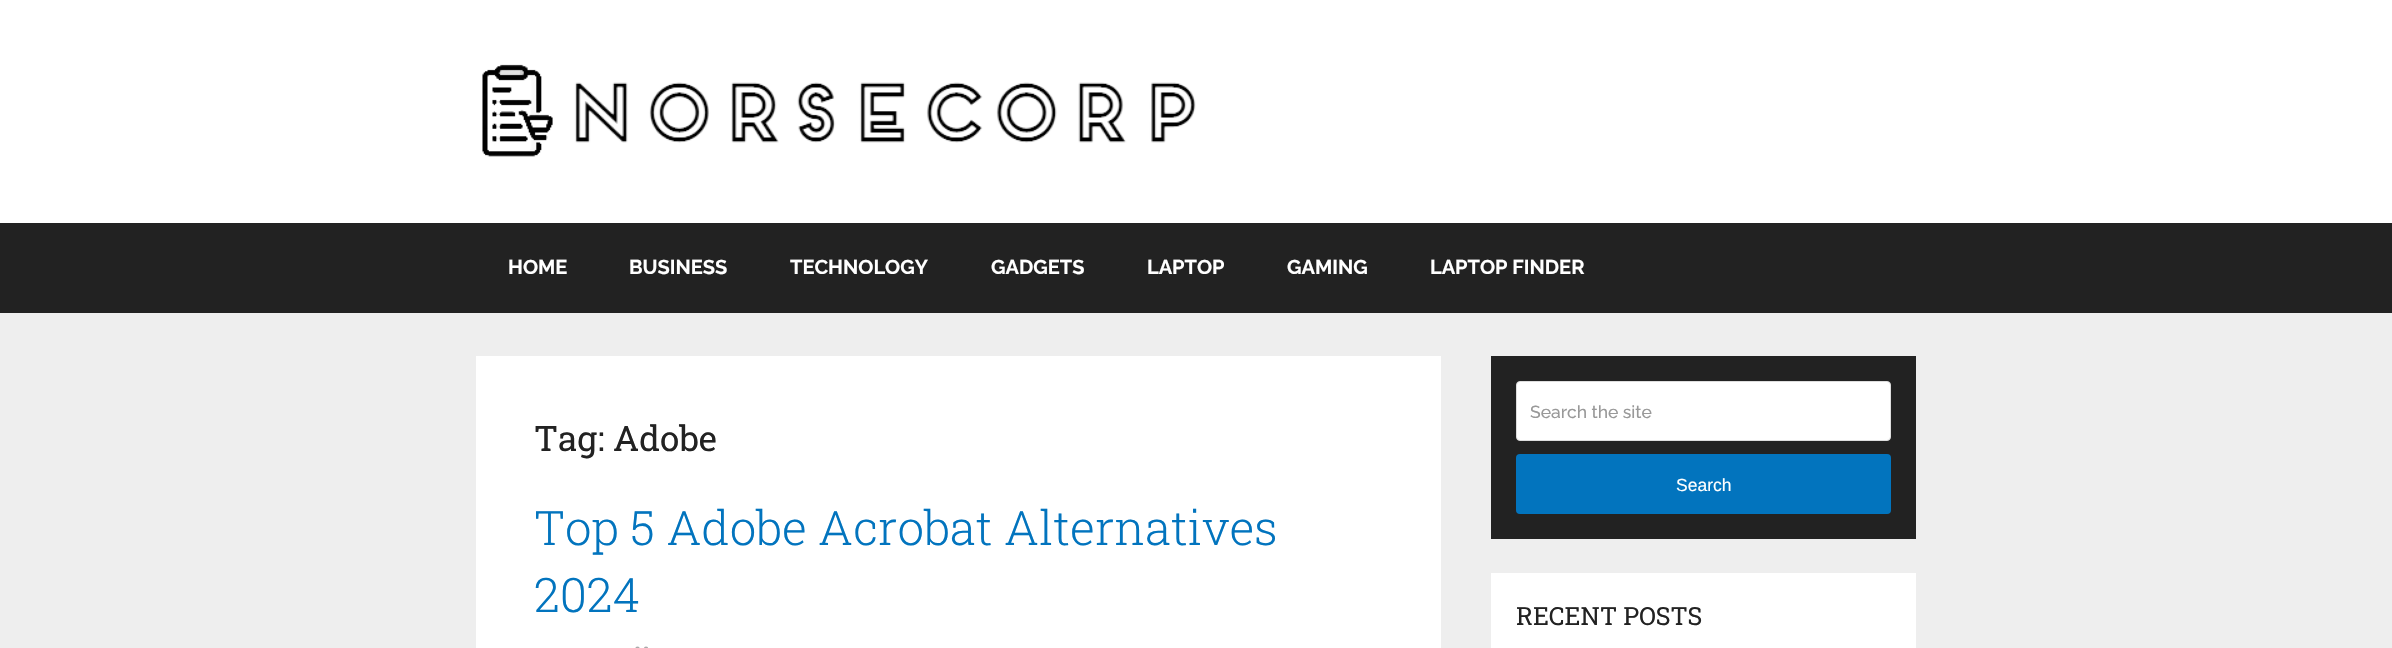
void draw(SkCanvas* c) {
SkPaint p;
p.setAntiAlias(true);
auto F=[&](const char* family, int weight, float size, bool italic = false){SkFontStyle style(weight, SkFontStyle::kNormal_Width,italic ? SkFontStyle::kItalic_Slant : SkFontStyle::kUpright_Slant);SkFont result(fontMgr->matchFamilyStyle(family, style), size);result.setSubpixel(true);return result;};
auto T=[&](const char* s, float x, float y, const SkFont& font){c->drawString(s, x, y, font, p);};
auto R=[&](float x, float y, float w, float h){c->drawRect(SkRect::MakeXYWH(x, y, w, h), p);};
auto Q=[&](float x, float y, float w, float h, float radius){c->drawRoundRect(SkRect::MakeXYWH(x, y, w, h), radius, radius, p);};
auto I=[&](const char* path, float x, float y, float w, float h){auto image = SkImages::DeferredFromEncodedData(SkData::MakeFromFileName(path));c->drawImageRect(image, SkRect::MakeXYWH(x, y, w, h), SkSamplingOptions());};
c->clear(0xffeeeeee);
p.setColor(0xffffffff);
R(0,0,2392,223);
I("1.png",482,64,714,93);
p.setColor(0xff222222);
R(0,223,2392,90);
auto f1 = F("Raleway",700,20);
p.setColor(0xffffffff);
T("HOME",508,274,f1);
T("BUSINESS",629,274,f1);
T("TECHNOLOGY",790,274,f1);
T("GADGETS",991,274,f1);
T("LAPTOP",1147,274,f1);
T("GAMING",1287,274,f1);
T("LAPTOP FINDER",1430,274,f1);
R(476,356,965,292);
auto f2 = F("Roboto Slab",400,35);
p.setColor(0xff222222);
T("Tag: Adobe",534,451,f2);
auto f3 = F("Roboto Slab",300,47.5);
p.setColor(0xff0274be);
T("Top 5 Adobe Acrobat Alternatives",534,545,f3);
T("2024",534,612,f3);
I("2.png",635,646,13,2);
p.setColor(0xff222222);
R(1491,356,425,183);
p.setColor(0xffffffff);
c->drawRoundRect(SkRect::MakeXYWH(1516.5,381.5,374,59),3.5,3.5,p);
p.setStroke(true);
p.setStrokeWidth(1);
p.setColor(0xffdddddd);
c->drawRoundRect(SkRect::MakeXYWH(1516.5,381.5,374,59),3.5,3.5,p);
auto f4 = F("Raleway",500,17.5);
p.setStroke(false);
p.setColor(0xff999999);
T("Search the site",1530,418,f4);
p.setColor(0xff0274be);
Q(1516,454,375,60,4);
auto f5 = F("Liberation Sans",400,17.5);
p.setColor(0xffffffff);
T("Search",1676,491,f5);
R(1491,573,425,75);
auto f6 = F("Roboto Slab",400,25);
p.setColor(0xff222222);
T("RECENT POSTS",1516,625,f6);
}
